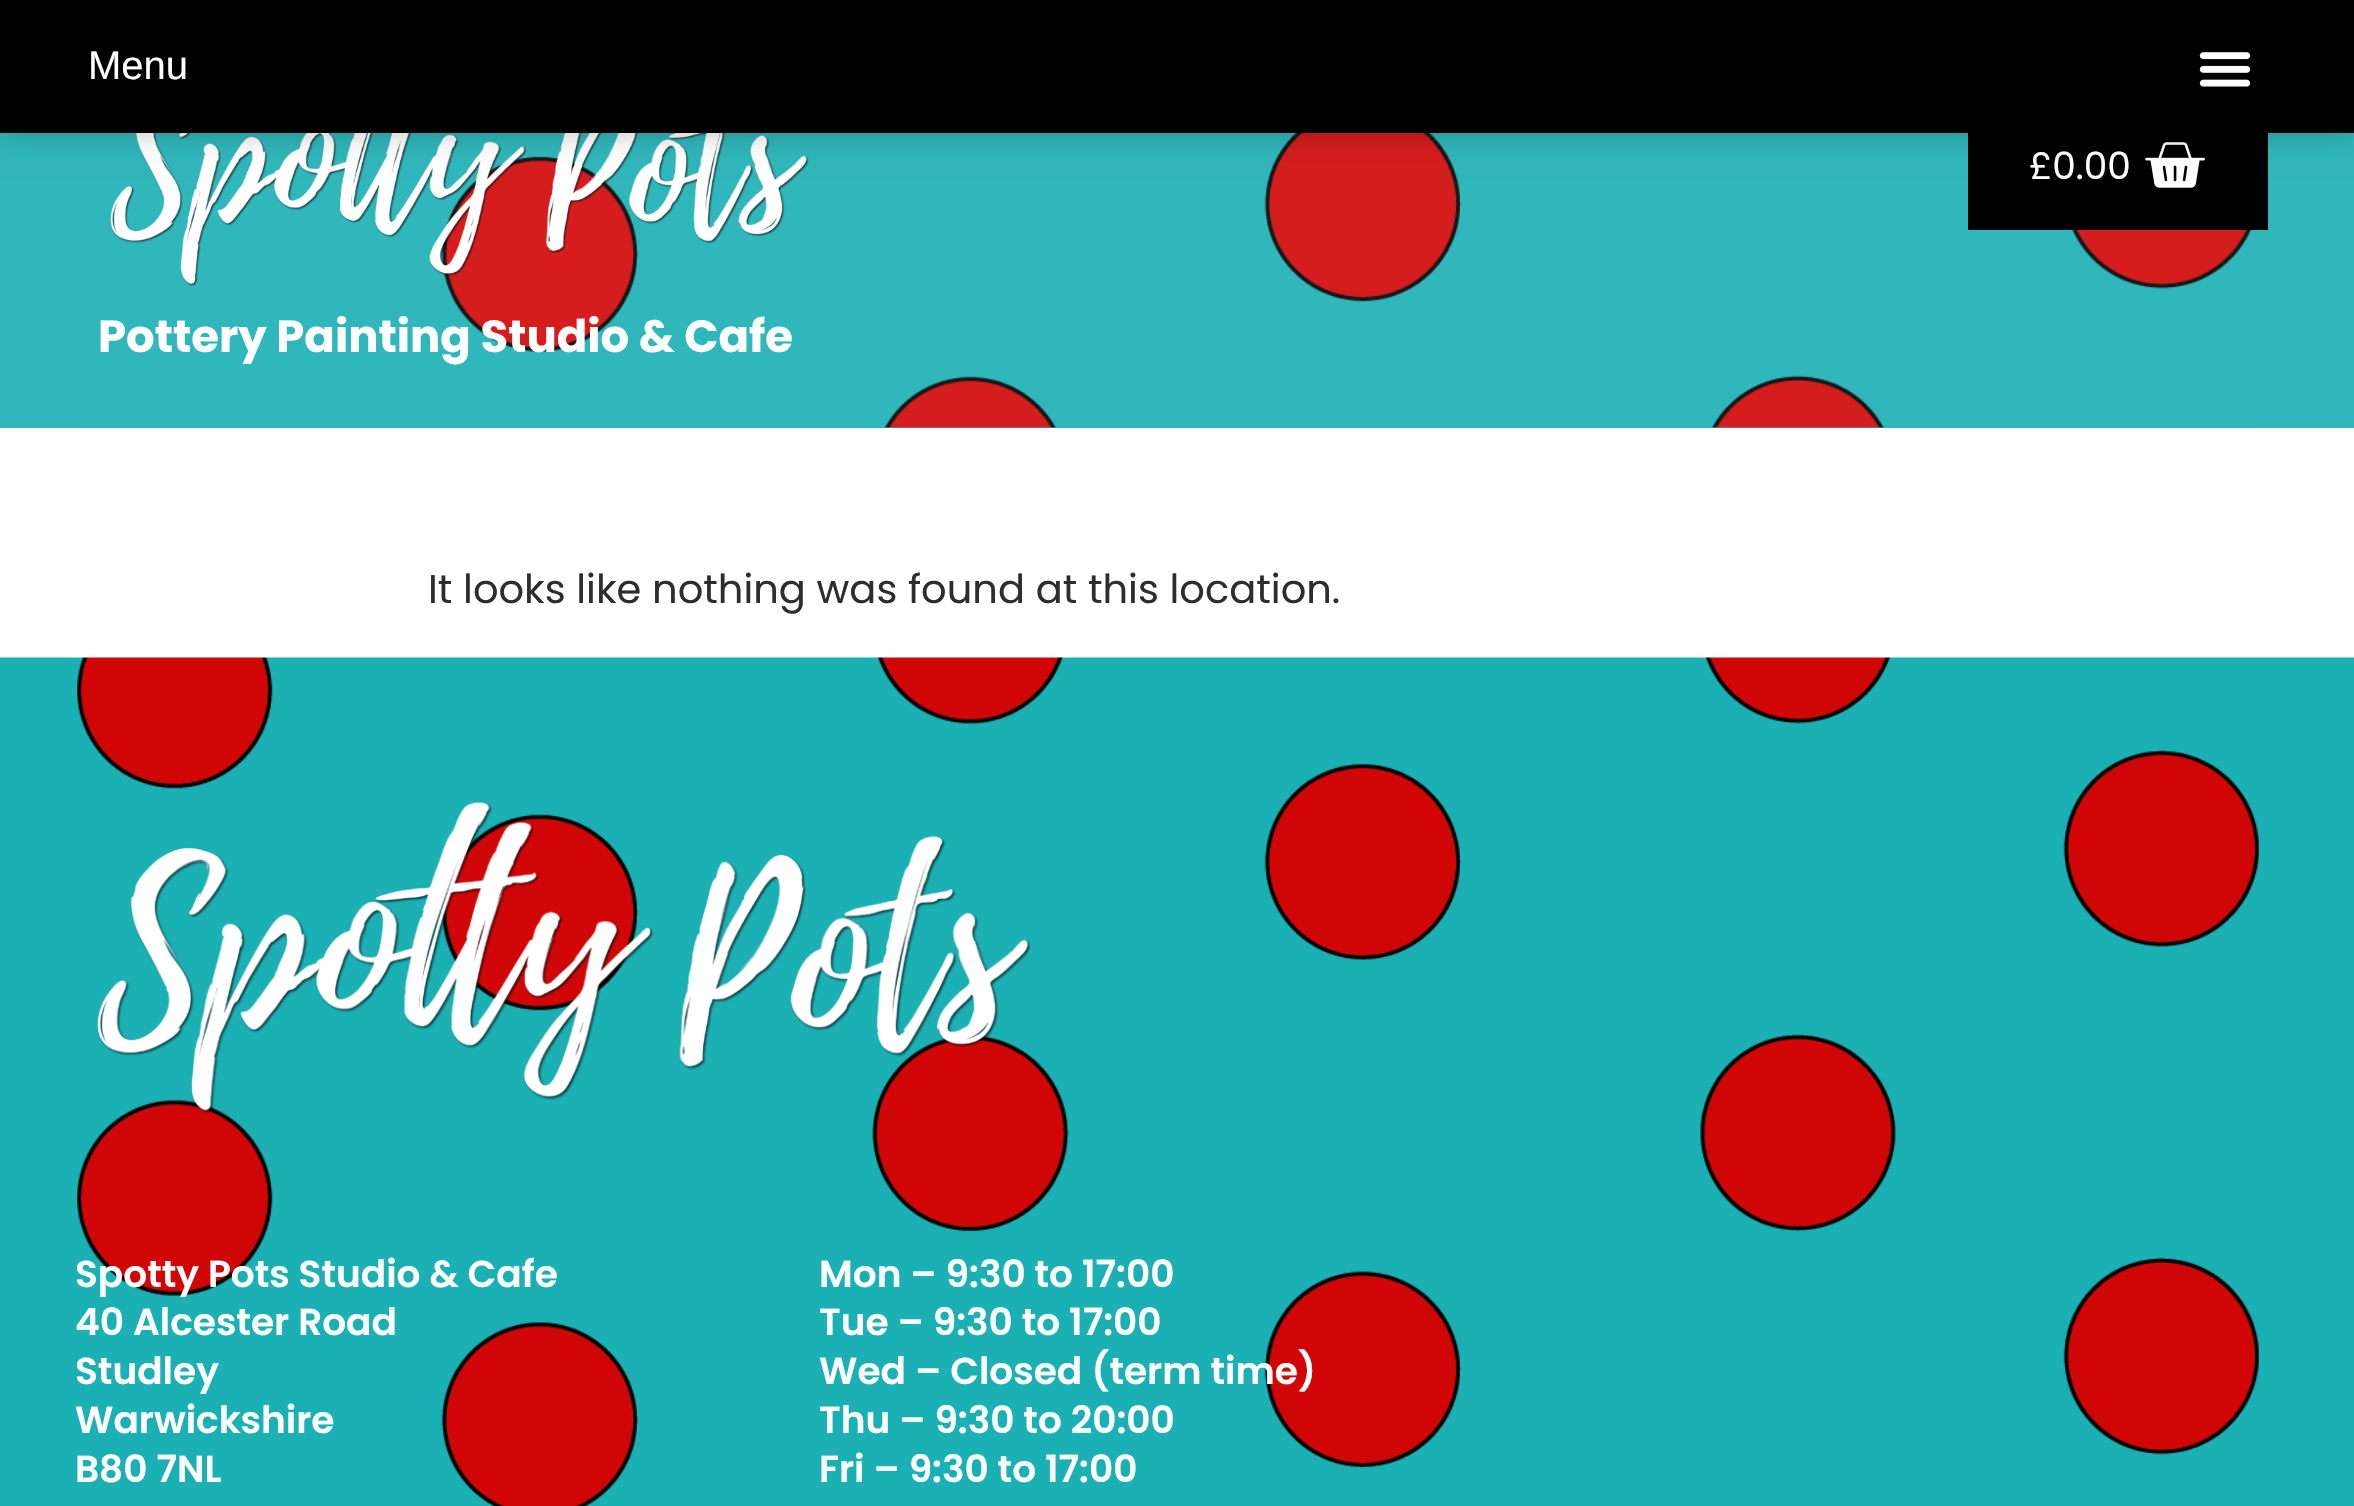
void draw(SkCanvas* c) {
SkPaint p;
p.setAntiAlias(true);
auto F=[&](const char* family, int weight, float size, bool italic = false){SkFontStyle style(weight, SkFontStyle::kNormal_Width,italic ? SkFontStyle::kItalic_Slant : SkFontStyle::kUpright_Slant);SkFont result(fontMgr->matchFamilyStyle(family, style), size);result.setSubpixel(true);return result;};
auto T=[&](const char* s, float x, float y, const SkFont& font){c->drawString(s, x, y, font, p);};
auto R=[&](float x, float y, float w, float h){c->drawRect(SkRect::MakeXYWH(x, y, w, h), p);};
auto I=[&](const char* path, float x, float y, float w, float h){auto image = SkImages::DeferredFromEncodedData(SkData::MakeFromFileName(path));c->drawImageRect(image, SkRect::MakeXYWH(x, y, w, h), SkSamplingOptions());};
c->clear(0xffffffff);
p.setColor(0xff30b7bb);
R(0,133,2354,295);
I("2.png",77,133,2182,295);
I("3.png",110,133,699,154);
p.setColor(0xff000000);
R(1968,133,300,97);
I("4.png",2145,142,60,46);
p.setColor(0x3d000000);
p.setMaskFilter(SkMaskFilter::MakeBlur(kNormal_SkBlurStyle, 15));
c->drawRect(SkRect::MakeXYWH(0,0,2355,133),p);
p.setMaskFilter(nullptr);
p.setColor(0xff000000);
R(0,0,2354,133);
auto f1 = F("Liberation Sans",400,40);
p.setColor(0xffffffff);
T("Menu",88,79,f1);
I("1.png",2199,52,52,35);
auto f2 = F("Poppins",400,37.5);
T("£0.00",2029,179,f2);
auto f3 = F("Poppins",700,45);
T("Pottery Painting Studio & Cafe",98,352,f3);
auto f4 = F("Poppins",400,40);
p.setColor(0xff2d2d2d);
T("It looks like nothing was found at this location.",428,603,f4);
I("5.png",0,657,2354,849);
I("6.png",97,802,934,312);
auto f5 = F("Poppins",600,37.5);
p.setColor(0xffffffff);
T("Spotty Pots Studio & Cafe",75,1287,f5);
T("40 Alcester Road",75,1335,f5);
T("Studley",75,1384,f5);
T("Warwickshire",75,1433,f5);
T("B80 7NL",75,1482,f5);
T("Mon – 9:30 to 17:00",819,1287,f5);
T("Tue – 9:30 to 17:00",819,1335,f5);
T("Wed – Closed (term time)",819,1384,f5);
T("Thu – 9:30 to 20:00",819,1433,f5);
T("Fri – 9:30 to 17:00",819,1482,f5);
}
